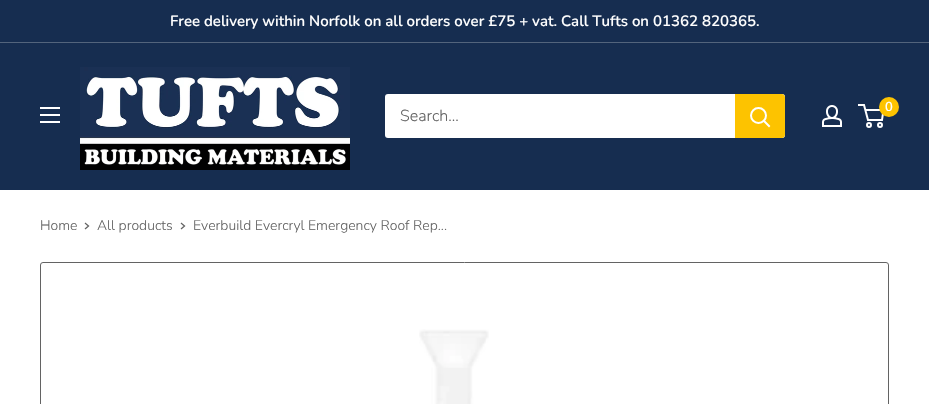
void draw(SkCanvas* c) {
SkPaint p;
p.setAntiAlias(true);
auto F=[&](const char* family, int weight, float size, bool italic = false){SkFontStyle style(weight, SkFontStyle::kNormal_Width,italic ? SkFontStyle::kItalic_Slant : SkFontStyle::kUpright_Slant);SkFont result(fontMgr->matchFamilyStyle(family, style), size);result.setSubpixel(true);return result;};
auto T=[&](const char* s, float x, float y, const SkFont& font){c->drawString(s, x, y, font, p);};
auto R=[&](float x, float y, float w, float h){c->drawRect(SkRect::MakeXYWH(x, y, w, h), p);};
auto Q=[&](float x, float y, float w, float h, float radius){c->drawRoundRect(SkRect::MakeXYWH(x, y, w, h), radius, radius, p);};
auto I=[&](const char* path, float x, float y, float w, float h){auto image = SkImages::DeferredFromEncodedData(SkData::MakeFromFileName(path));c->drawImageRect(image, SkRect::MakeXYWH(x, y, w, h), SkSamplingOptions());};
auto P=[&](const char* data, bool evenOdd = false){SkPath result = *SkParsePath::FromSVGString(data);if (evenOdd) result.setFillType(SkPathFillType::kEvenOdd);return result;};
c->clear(0xffffffff);
p.setColor(0xff162d50);
R(0,0,929,42);
p.setColor(0xff53647c);
R(0,42,929,1);
auto f1 = F("Nunito",600,15);
p.setColor(0xffffffff);
T("Free delivery within Norfolk on all orders over £75 + vat. Call Tufts on 01362 820365.",170,26,f1);
p.setColor(0xff162d50);
R(0,43,929,147);
I("1.png",40,107,20,16);
I("2.png",80,67,270,103);
p.setColor(0xffffffff);
Q(385,94,400,44,3);
auto f2 = F("Nunito",300,16);
p.setColor(0xff636363);
T("Search...",400,121,f2);
p.setColor(0xfffdc300);
c->drawPath(P("M735 94h47c1.5 0 3 1.5 3 3v38c0 1.5-1.5 3-3 3h-47z"),p);
p.setStroke(true);
p.setStrokeWidth(2);
p.setStrokeCap(SkPaint::kSquare_Cap);
p.setColor(0xffffffff);
c->drawPath(P("M769 126l-5-5"),p);
p.setStrokeCap(SkPaint::kButt_Cap);
c->drawCircle(758.5,115.5,7.5,p);
I("3.png",822,105,20,22);
c->drawCircle(869,125,2,p);
c->drawCircle(880,125,2,p);
c->drawPath(P("M865.5 110h18l-1.5 10h-14l-4-15h-6"),p);
p.setStroke(false);
p.setColor(0xfffdc300);
c->drawCircle(889,107,10,p);
auto f3 = F("Nunito",600,13);
p.setColor(0xffffffff);
T("0",885,111,f3);
auto f4 = F("Nunito",300,14);
p.setColor(0xff636363);
T("Home",40,230,f4);
p.setStroke(true);
p.setStrokeWidth(1.3);
p.setStrokeCap(SkPaint::kSquare_Cap);
c->drawPath(P("M85.5 223.5l3 2.5l-3 2.5"),p);
p.setStroke(false);
T("All products",97,230,f4);
p.setStroke(true);
c->drawPath(P("M181.5 223.5l3 2.5l-3 2.5"),p);
p.setStroke(false);
T("Everbuild Evercryl Emergency Roof Rep...",193,230,f4);
p.setStroke(true);
p.setStrokeWidth(1);
p.setStrokeCap(SkPaint::kButt_Cap);
c->drawRoundRect(SkRect::MakeXYWH(40.5,262.5,848,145),2.5,2.5,p);
I("4.png",419,329,70,75);
}
